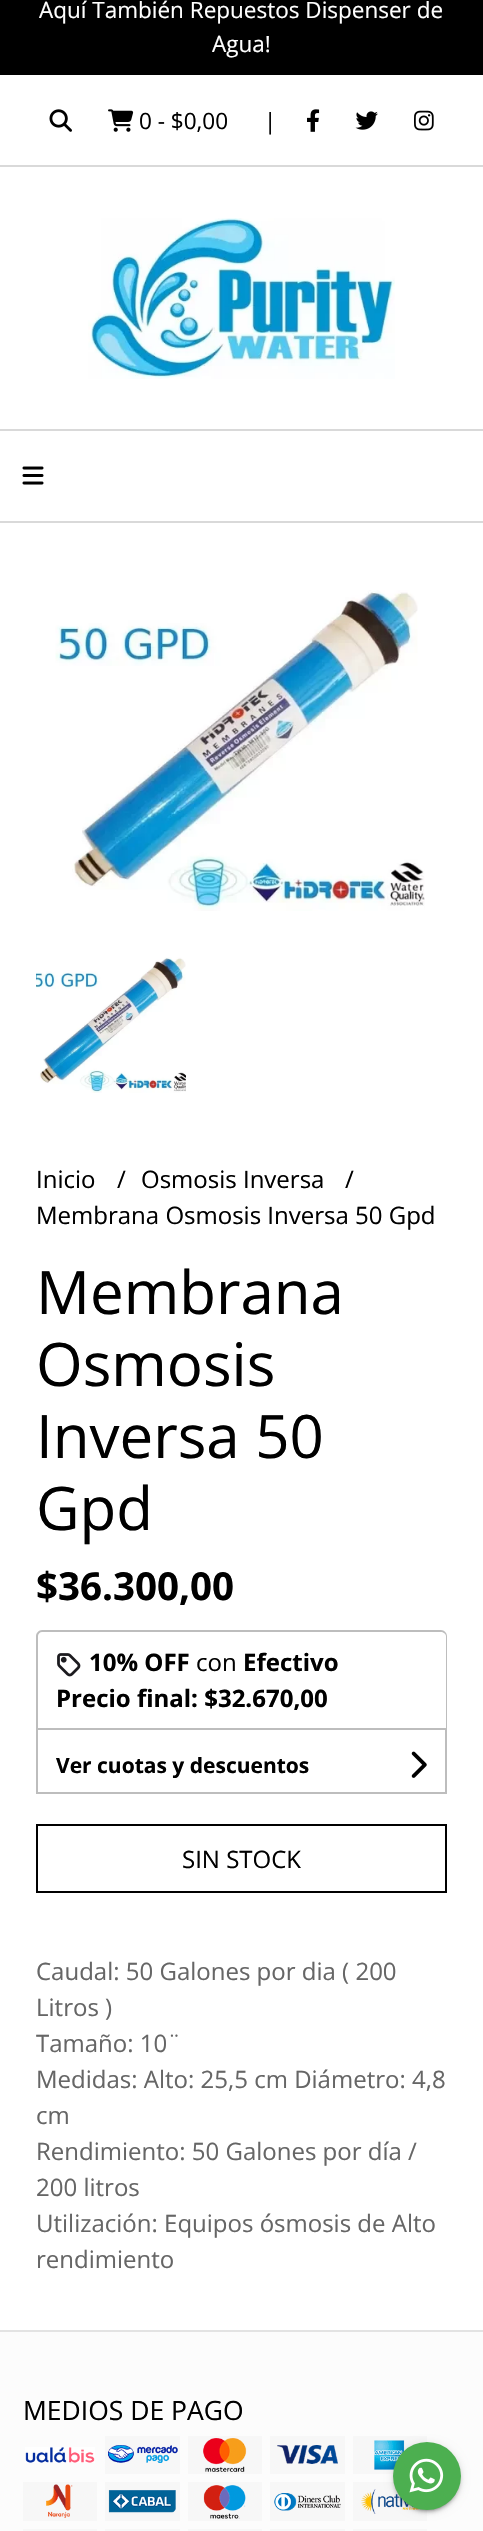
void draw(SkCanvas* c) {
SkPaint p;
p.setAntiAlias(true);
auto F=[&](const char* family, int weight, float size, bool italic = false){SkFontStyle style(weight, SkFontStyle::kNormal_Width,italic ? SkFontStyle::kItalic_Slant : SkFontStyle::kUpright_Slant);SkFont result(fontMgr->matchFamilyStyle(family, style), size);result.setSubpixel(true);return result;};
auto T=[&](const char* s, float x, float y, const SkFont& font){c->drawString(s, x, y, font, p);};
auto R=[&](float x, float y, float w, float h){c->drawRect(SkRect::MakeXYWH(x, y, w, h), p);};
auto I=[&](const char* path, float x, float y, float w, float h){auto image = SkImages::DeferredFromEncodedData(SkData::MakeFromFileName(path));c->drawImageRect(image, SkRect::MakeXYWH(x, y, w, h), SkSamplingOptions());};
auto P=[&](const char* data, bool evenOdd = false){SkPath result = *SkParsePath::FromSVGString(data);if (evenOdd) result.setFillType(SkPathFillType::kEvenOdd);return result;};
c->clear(0xffffffff);
p.setColor(0xff000000);
R(0,0,483,75);
auto f1 = F("Open Sans",400,22.5);
p.setColor(0xffffffff);
T("Aquí También Repuestos Dispenser de",39,18,f1);
T("Agua!",212,52,f1);
p.setColor(0xffd9d9d9);
R(0,165,483,2);
I("1.png",49,109,23,23);
I("2.png",108,109,26,23);
p.setColor(0xff000000);
T("0 - $0,00",139,129,f1);
T("|",264,129,f1);
I("3.png",307,109,13,23);
I("4.png",355,111,23,19);
I("5.png",414,110,20,21);
I("6.png",88,218,307,161);
p.setColor(0xffd9d9d9);
R(0,429,483,2);
R(0,521,483,2);
I("7.png",22,466,22,19);
I("8.png",55,590,370,321);
I("9.png",36,957,150,136);
auto f2 = F("Open Sans",400,24);
p.setColor(0xff000000);
T("Inicio",36,1188,f2);
T("/",117,1188,f2);
T("Osmosis Inversa",141,1188,f2);
T("/",345,1188,f2);
T("Membrana Osmosis Inversa 50 Gpd",36,1224,f2);
auto f3 = F("Open Sans",400,60);
T("Membrana",36,1314,f3);
T("Osmosis",36,1386,f3);
T("Inversa 50",36,1458,f3);
T("Gpd",36,1530,f3);
auto f4 = F("Open Sans",700,38.5);
T("$36.300,00",36,1600,f4);
p.setColor(0xffbdbdbd);
c->drawPath(P("M42 1630h399c3 0 6 3 6 6v92h-411v-92c0-3 3-6 6-6zm0 2h399c2 0 5 2 5 4v92h-408v-92c0-2 2-4 4-4z",true),p);
I("10.png",57,1653,24,24);
auto f5 = F("Open Sans",700,24);
p.setColor(0xff000000);
T("10% OFF",89,1671,f5);
T("con",196,1671,f2);
T("Efectivo",243,1671,f5);
T("Precio final: $32.670,00",56,1707,f5);
p.setStroke(true);
p.setStrokeWidth(2);
p.setColor(0xffbdbdbd);
c->drawRect(SkRect::MakeXYWH(37,1729,409,64),p);
auto f6 = F("Open Sans",700,21);
p.setStroke(false);
p.setColor(0xff000000);
T("Ver cuotas y descuentos",56,1773,f6);
I("11.png",411,1751,16,27);
p.setStroke(true);
c->drawRect(SkRect::MakeXYWH(37,1825,409,67),p);
p.setStroke(false);
T("SIN STOCK",182,1868,f2);
p.setColor(0xff666666);
T("Caudal: 50 Galones por dia ( 200",36,1980,f2);
T("Litros )",36,2016,f2);
T("Tamaño: 10¨",36,2052,f2);
T("Medidas: Alto: 25,5 cm Diámetro: 4,8",36,2088,f2);
T("cm",36,2124,f2);
T("Rendimiento: 50 Galones por día /",36,2160,f2);
T("200 litros",36,2196,f2);
T("Utilización: Equipos ósmosis de Alto",36,2232,f2);
T("rendimiento",36,2268,f2);
p.setColor(0xfffcfcfc);
R(0,2332,483,199);
p.setColor(0xffe3e3e3);
R(0,2330,483,2);
auto f7 = F("Open Sans",400,26.5);
p.setColor(0xff000000);
T("MEDIOS DE PAGO",23,2420,f7);
I("12.png",25,2447,70,16);
I("13.png",105,2436,75,38);
I("14.png",188,2436,74,38);
I("15.png",270,2436,75,38);
I("16.png",353,2436,74,38);
I("17.png",23,2482,74,39);
I("18.png",105,2482,75,39);
I("19.png",188,2482,74,39);
I("20.png",270,2482,75,39);
I("21.png",353,2482,74,39);
p.setColor(0xfff7f7f7);
R(23,2529,74,2);
R(105,2529,75,2);
R(188,2529,74,2);
R(270,2529,75,2);
R(353,2529,74,2);
p.setColor(0x33000000);
p.setMaskFilter(SkMaskFilter::MakeBlur(kNormal_SkBlurStyle, 1));
c->drawRoundRect(SkRect::MakeXYWH(396,2450,62,61),30.5,30.5,p);
p.setMaskFilter(nullptr);
p.setColor(0x1f000000);
p.setMaskFilter(SkMaskFilter::MakeBlur(kNormal_SkBlurStyle, 4));
c->drawRoundRect(SkRect::MakeXYWH(393,2444,68,67),33.5,33.5,p);
p.setMaskFilter(nullptr);
p.setColor(0x24000000);
p.setMaskFilter(SkMaskFilter::MakeBlur(kNormal_SkBlurStyle, 1.5));
c->drawRoundRect(SkRect::MakeXYWH(393,2445,68,68),34,34,p);
p.setMaskFilter(nullptr);
p.setColor(0xff4caf50);
c->drawCircle(427,2476,34,p);
I("22.png",409,2458,35,35);
}
